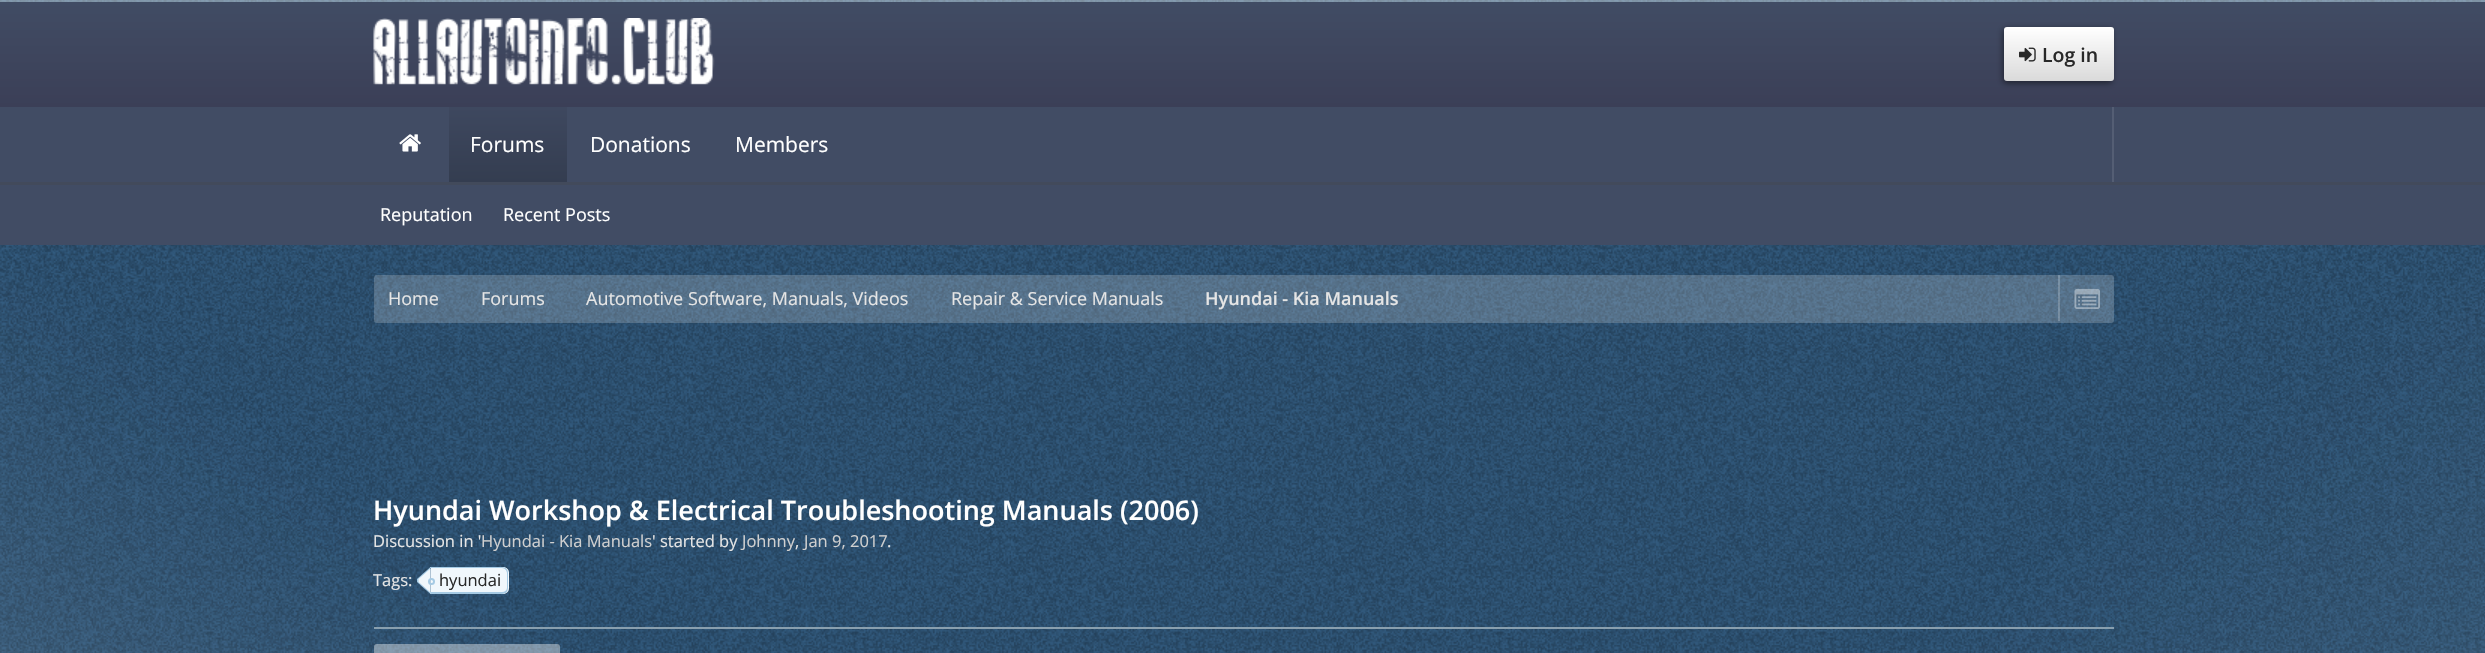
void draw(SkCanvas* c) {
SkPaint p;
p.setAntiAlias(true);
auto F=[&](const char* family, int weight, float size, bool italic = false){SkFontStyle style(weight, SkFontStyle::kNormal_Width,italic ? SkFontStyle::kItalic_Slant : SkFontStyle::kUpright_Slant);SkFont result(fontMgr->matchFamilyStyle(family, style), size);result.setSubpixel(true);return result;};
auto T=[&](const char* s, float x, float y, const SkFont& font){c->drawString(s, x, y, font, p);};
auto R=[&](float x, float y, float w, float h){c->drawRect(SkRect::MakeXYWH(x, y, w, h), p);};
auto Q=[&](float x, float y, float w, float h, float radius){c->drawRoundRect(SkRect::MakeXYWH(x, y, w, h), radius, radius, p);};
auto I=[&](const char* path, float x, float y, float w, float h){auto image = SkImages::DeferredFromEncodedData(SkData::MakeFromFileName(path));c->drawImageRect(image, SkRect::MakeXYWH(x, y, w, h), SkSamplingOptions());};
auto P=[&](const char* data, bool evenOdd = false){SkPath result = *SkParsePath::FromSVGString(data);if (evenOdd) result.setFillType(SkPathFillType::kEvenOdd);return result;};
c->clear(0xffffffff);
I("1.png",0,0,2485,653);
p.setColor(0x66ffffff);
R(0,0,2485,2);
p.setColor(0xff414c64);
R(0,107,2485,138);
{
const SkColor colors[] = {0xff414c64,0xff3b3f57};
const float stops[] = {0,1};
const SkPoint ends[] = {{1243,1.5}, {1243,107}};
p.setShader(SkGradientShader::MakeLinear(ends, colors, stops, 2, SkTileMode::kClamp));
p.setAlpha(255);
}
R(0,2,2485,105);
I("2.png",373,18,342,67);
p.setShader(nullptr);
p.setColor(0x80000000);
p.setMaskFilter(SkMaskFilter::MakeBlur(kNormal_SkBlurStyle, 3));
c->drawRoundRect(SkRect::MakeXYWH(2003,29,109,54),3,3,p);
p.setMaskFilter(nullptr);
{
const SkColor colors[] = {0xffffffff,0xffdadada};
const float stops[] = {0,1};
const SkPoint ends[] = {{2059,27}, {2059,81}};
p.setShader(SkGradientShader::MakeLinear(ends, colors, stops, 2, SkTileMode::kClamp));
p.setAlpha(255);
}
Q(2004,27,110,54,3);
I("3.png",2019,47,17,15);
auto f1 = F("Open Sans",600,19.5);
p.setShader(nullptr);
p.setColor(0xff282828);
T("Log in",2042,62,f1);
I("4.png",399,134,22,18);
auto f2 = F("Open Sans",400,21);
p.setColor(0xffffffff);
T("Donations",590,152,f2);
T("Members",735,152,f2);
{
const SkColor colors[] = {0xff3e485f,0xff343d50};
const float stops[] = {0,1};
const SkPoint ends[] = {{508,107}, {508,182}};
p.setShader(SkGradientShader::MakeLinear(ends, colors, stops, 2, SkTileMode::kClamp));
p.setAlpha(255);
}
R(449,107,118,75);
p.setShader(nullptr);
p.setColor(0xffffffff);
T("Forums",470,152,f2);
p.setColor(0xff424a5b);
R(0,182,2485,3);
auto f3 = F("Open Sans",400,18);
p.setColor(0xffffffff);
T("Reputation",380,221,f3);
T("Recent Posts",503,221,f3);
p.setColor(0xff545e74);
R(2112,107,2,75);
p.setColor(0x33ffffff);
Q(374,275,1740,48,3);
p.setColor(0xffe5e5e5);
T("Home",388,305,f3);
T("Forums",481,305,f3);
T("Automotive Software, Manuals, Videos",586,305,f3);
T("Repair & Service Manuals",951,305,f3);
auto f4 = F("Open Sans",600,18);
T("Hyundai - Kia Manuals",1205,305,f4);
p.setColor(0x33ffffff);
R(2058,275,2,46);
I("5.png",2074,288,26,21);
auto f5 = F("Open Sans",600,27);
p.setColor(0xffffffff);
T("Hyundai Workshop & Electrical Troubleshooting Manuals (2006)",373,520,f5);
auto f6 = F("Open Sans",400,16.5);
p.setColor(0xffe5e5e5);
T("Discussion in '",373,547,f6);
p.setColor(0xffd0d0d0);
T("Hyundai - Kia Manuals",481,547,f6);
p.setColor(0xffe5e5e5);
T("' started by",652,547,f6);
p.setColor(0xffd0d0d0);
T("Johnny",742,547,f6);
p.setColor(0xffe5e5e5);
T(",",795,547,f6);
p.setColor(0xffd0d0d0);
T("Jan 9, 2017",804,547,f6);
p.setColor(0xffe5e5e5);
T(".",887,547,f6);
T("Tags:",373,586,f6);
p.setColor(0xfff0f7fc);
c->drawPath(P("M431 567h72c3.5 0 6 2.5 6 6v15c0 3.5-2.5 6-6 6h-72z"),p);
p.setColor(0xffa5cae4);
c->drawPath(P("M430 567h72c4 0 6 3 6 6v15c0 3-2 6-6 6h-72zm0 1h72c3 0 5 3 5 5v15c0 2-2 4-5 4h-72z",true),p);
c->drawPath(P("M430.5 567v27l-13.5-12v-3z"),p);
p.setColor(0xfff0f7fc);
c->drawPath(P("M430.5 568.5v24l-12-10.5v-3z"),p);
p.setColor(0x33ffffff);
c->drawCircle(431.5,581.5,2.5,p);
p.setStroke(true);
p.setStrokeWidth(2);
p.setColor(0xffa5cae4);
c->drawCircle(431.5,581.5,2.5,p);
p.setStroke(false);
p.setColor(0xff282828);
T("hyundai",439,586,f6);
p.setColor(0xff899fae);
R(374,627,1740,2);
p.setColor(0x66ffffff);
Q(374,644,186,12,3);
}
